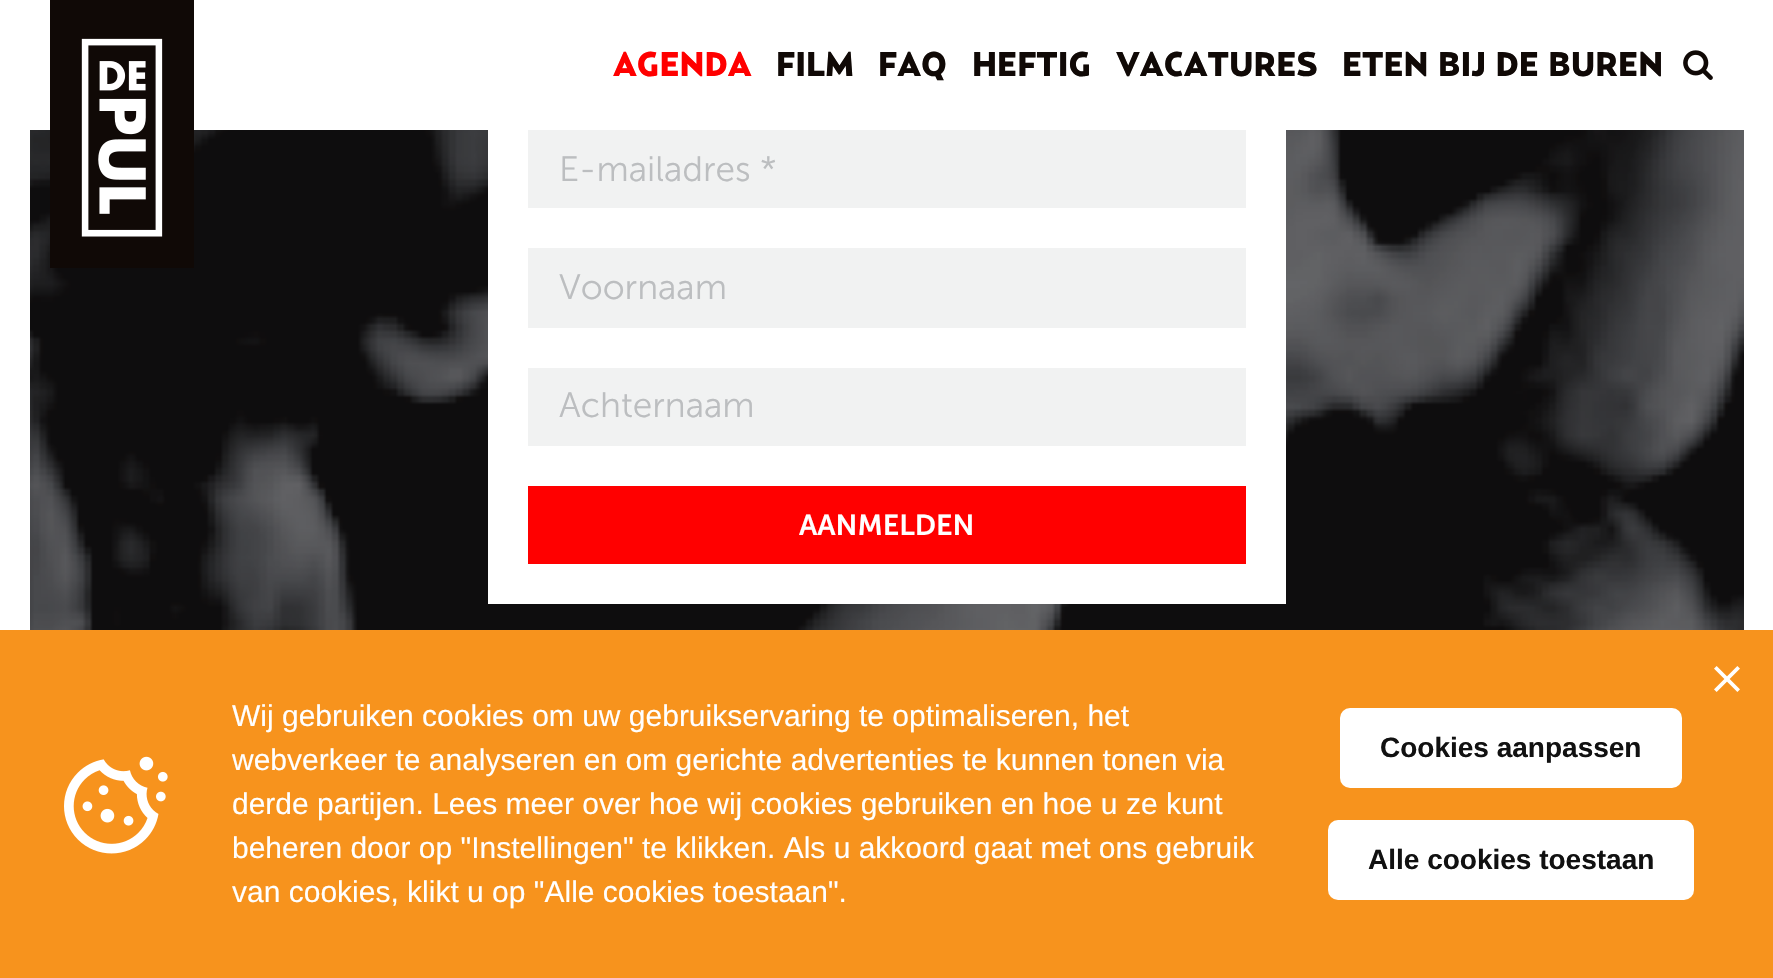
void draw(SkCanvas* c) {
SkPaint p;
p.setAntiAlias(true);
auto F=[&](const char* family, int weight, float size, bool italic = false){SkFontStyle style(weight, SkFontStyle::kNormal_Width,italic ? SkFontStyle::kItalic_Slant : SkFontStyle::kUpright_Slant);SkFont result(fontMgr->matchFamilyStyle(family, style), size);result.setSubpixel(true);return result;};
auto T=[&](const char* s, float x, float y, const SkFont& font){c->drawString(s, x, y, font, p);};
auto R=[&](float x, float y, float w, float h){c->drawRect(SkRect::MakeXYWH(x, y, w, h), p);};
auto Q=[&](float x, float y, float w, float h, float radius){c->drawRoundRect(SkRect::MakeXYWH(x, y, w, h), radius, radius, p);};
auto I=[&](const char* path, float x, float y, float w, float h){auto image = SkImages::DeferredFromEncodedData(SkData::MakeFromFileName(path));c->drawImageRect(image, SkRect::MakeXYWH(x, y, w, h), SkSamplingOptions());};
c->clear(0xffffffff);
I("3.png",30,130,1714,500);
I("1.png",50,0,144,268);
auto f1 = F("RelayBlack",900,34);
p.setColor(0xffff0000);
T("AGENDA",613,76,f1);
p.setColor(0xff100906);
T("FILM",776,76,f1);
T("FAQ",878,76,f1);
T("HEFTIG",972,76,f1);
T("VACATURES",1116,76,f1);
T("ETEN BIJ DE BUREN",1342,76,f1);
I("2.png",1683,50,30,30);
p.setColor(0xffffffff);
R(488,130,798,474);
p.setColor(0xfff1f2f2);
R(528,130,718,78);
auto f2 = F("Museo Sans",300,35.25);
p.setColor(0xffbcbec0);
T("E-mailadres *",559,181,f2);
p.setColor(0xfff1f2f2);
R(528,248,718,80);
p.setColor(0xffbcbec0);
T("Voornaam",559,299,f2);
p.setColor(0xfff1f2f2);
R(528,368,718,78);
p.setColor(0xffbcbec0);
T("Achternaam",559,417,f2);
p.setColor(0xffff0000);
R(528,486,718,78);
auto f3 = F("Museo Sans",600,28.75);
p.setColor(0xffffffff);
T("AANMELDEN",799,535,f3);
p.setColor(0xfff7931d);
R(0,630,1773,348);
I("4.png",1714,666,26,26);
I("5.png",64,756,104,98);
auto f4 = F("Liberation Sans",400,30);
p.setColor(0xffffffff);
T("Wij gebruiken cookies om uw gebruikservaring te optimaliseren, het",232,726,f4);
T("webverkeer te analyseren en om gerichte advertenties te kunnen tonen via",232,770,f4);
T("derde partijen. Lees meer over hoe wij cookies gebruiken en hoe u ze kunt",232,814,f4);
T("beheren door op \"Instellingen\" te klikken. Als u akkoord gaat met ons gebruik",232,858,f4);
T("van cookies, klikt u op \"Alle cookies toestaan\".",232,902,f4);
Q(1340,708,342,80,10);
auto f5 = F("Liberation Sans",700,28);
p.setColor(0xff111111);
T("Cookies aanpassen",1380,757,f5);
p.setColor(0xffffffff);
Q(1328,820,366,80,10);
p.setColor(0xff111111);
T("Alle cookies toestaan",1368,869,f5);
}
